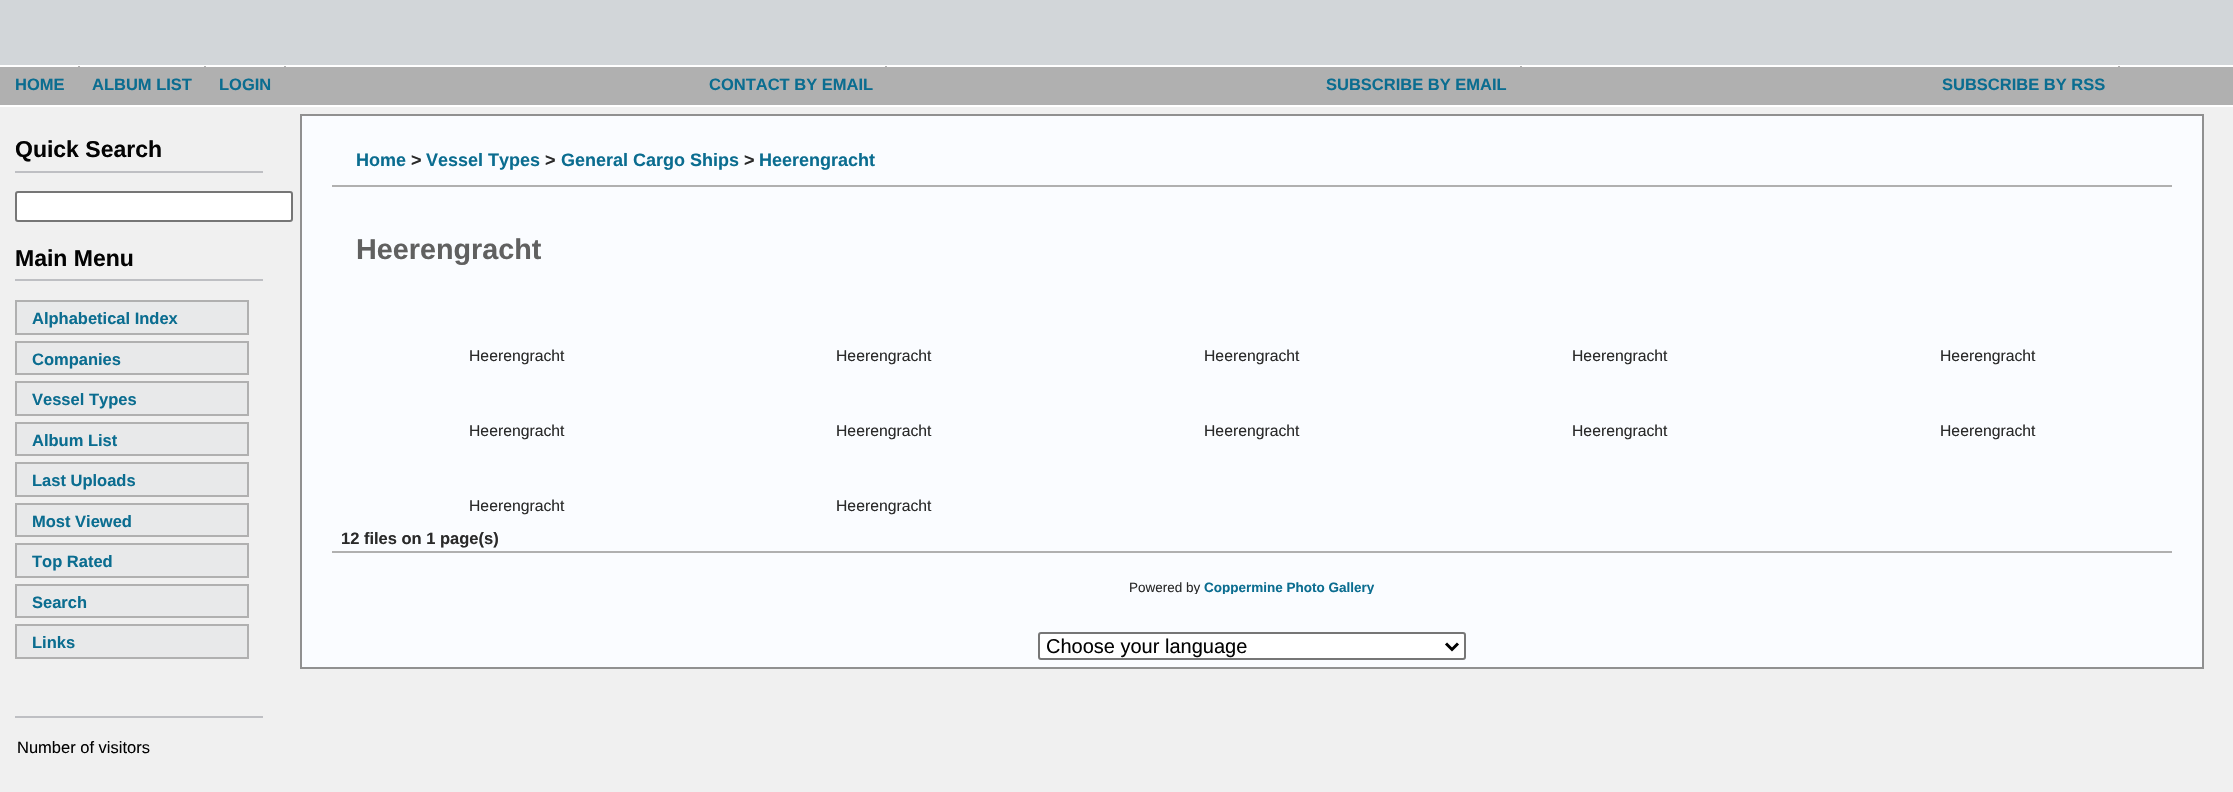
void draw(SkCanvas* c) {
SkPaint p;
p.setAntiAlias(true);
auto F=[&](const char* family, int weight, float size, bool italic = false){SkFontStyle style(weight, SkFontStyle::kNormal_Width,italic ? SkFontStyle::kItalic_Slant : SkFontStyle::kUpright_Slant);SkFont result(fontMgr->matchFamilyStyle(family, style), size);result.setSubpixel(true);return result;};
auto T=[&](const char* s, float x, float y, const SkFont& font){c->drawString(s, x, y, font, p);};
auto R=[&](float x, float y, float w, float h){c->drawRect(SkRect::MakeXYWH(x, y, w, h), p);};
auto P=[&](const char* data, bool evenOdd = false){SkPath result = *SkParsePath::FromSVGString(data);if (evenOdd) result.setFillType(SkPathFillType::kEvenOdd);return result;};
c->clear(0xfff0f0f0);
p.setColor(0xffd2d6d9);
R(0,0,2233,65);
p.setColor(0xffb0b0b0);
R(0,67,2233,38);
p.setColor(0xffffffff);
R(0,65,2233,2);
R(0,105,2233,2);
auto f1 = F("Liberation Sans",700,16.5);
p.setColor(0xff0b6d90);
T("HOME",15,90,f1);
p.setColor(0xffb0b0b0);
R(78,66,2,1);
p.setColor(0xff0b6d90);
T("ALBUM LIST",92,90,f1);
p.setColor(0xffb0b0b0);
R(204,66,2,1);
p.setColor(0xff0b6d90);
T("LOGIN",219,90,f1);
p.setColor(0xffb0b0b0);
R(284,66,2,1);
p.setColor(0xff0b6d90);
T("CONTACT BY EMAIL",709,90,f1);
p.setColor(0xffb0b0b0);
R(885,66,2,1);
p.setColor(0xff0b6d90);
T("SUBSCRIBE BY EMAIL",1326,90,f1);
p.setColor(0xffb0b0b0);
R(1520,66,2,1);
p.setColor(0xff0b6d90);
T("SUBSCRIBE BY RSS",1942,90,f1);
p.setColor(0xffb0b0b0);
R(2118,66,2,1);
p.setColor(0xffbebfc3);
R(15,171,248,2);
auto f2 = F("Liberation Sans",700,23);
p.setColor(0xff030303);
T("Quick Search",15,157,f2);
p.setColor(0xffffffff);
c->drawRoundRect(SkRect::MakeXYWH(16,192,276,29),2,2,p);
p.setStroke(true);
p.setStrokeWidth(2);
p.setColor(0xff767676);
c->drawRoundRect(SkRect::MakeXYWH(16,192,276,29),2,2,p);
p.setStroke(false);
p.setColor(0xffbebfc3);
R(15,279,248,2);
p.setColor(0xff030303);
T("Main Menu",15,266,f2);
p.setColor(0xffe8e9ea);
c->drawRect(SkRect::MakeXYWH(16,301,232,33),p);
p.setStroke(true);
p.setColor(0xffb0b0b0);
c->drawRect(SkRect::MakeXYWH(16,301,232,33),p);
p.setStroke(false);
p.setColor(0xff0b6d90);
T("Alphabetical Index",32,324,f1);
p.setColor(0xffe8e9ea);
c->drawRect(SkRect::MakeXYWH(16,342,232,32),p);
p.setStroke(true);
p.setColor(0xffb0b0b0);
c->drawRect(SkRect::MakeXYWH(16,342,232,32),p);
p.setStroke(false);
p.setColor(0xff0b6d90);
T("Companies",32,365,f1);
p.setColor(0xffe8e9ea);
c->drawRect(SkRect::MakeXYWH(16,382,232,33),p);
p.setStroke(true);
p.setColor(0xffb0b0b0);
c->drawRect(SkRect::MakeXYWH(16,382,232,33),p);
p.setStroke(false);
p.setColor(0xff0b6d90);
T("Vessel Types",32,405,f1);
p.setColor(0xffe8e9ea);
c->drawRect(SkRect::MakeXYWH(16,423,232,32),p);
p.setStroke(true);
p.setColor(0xffb0b0b0);
c->drawRect(SkRect::MakeXYWH(16,423,232,32),p);
p.setStroke(false);
p.setColor(0xff0b6d90);
T("Album List",32,446,f1);
p.setColor(0xffe8e9ea);
c->drawRect(SkRect::MakeXYWH(16,463,232,33),p);
p.setStroke(true);
p.setColor(0xffb0b0b0);
c->drawRect(SkRect::MakeXYWH(16,463,232,33),p);
p.setStroke(false);
p.setColor(0xff0b6d90);
T("Last Uploads",32,486,f1);
p.setColor(0xffe8e9ea);
c->drawRect(SkRect::MakeXYWH(16,504,232,32),p);
p.setStroke(true);
p.setColor(0xffb0b0b0);
c->drawRect(SkRect::MakeXYWH(16,504,232,32),p);
p.setStroke(false);
p.setColor(0xff0b6d90);
T("Most Viewed",32,527,f1);
p.setColor(0xffe8e9ea);
c->drawRect(SkRect::MakeXYWH(16,544,232,33),p);
p.setStroke(true);
p.setColor(0xffb0b0b0);
c->drawRect(SkRect::MakeXYWH(16,544,232,33),p);
p.setStroke(false);
p.setColor(0xff0b6d90);
T("Top Rated",32,567,f1);
p.setColor(0xffe8e9ea);
c->drawRect(SkRect::MakeXYWH(16,585,232,32),p);
p.setStroke(true);
p.setColor(0xffb0b0b0);
c->drawRect(SkRect::MakeXYWH(16,585,232,32),p);
p.setStroke(false);
p.setColor(0xff0b6d90);
T("Search",32,608,f1);
p.setColor(0xffe8e9ea);
c->drawRect(SkRect::MakeXYWH(16,625,232,33),p);
p.setStroke(true);
p.setColor(0xffb0b0b0);
c->drawRect(SkRect::MakeXYWH(16,625,232,33),p);
p.setStroke(false);
p.setColor(0xff0b6d90);
T("Links",32,648,f1);
p.setColor(0xffbebfc3);
R(15,716,248,2);
auto f3 = F("Liberation Sans",400,16.5);
p.setColor(0xff030303);
T("Number of visitors",17,753,f3);
p.setColor(0xfffafcff);
c->drawRect(SkRect::MakeXYWH(301,115,1902,553),p);
p.setStroke(true);
p.setColor(0xff909090);
c->drawRect(SkRect::MakeXYWH(301,115,1902,553),p);
p.setStroke(false);
p.setColor(0xffb0b0b0);
R(332,185,1840,2);
auto f4 = F("Liberation Sans",700,18);
p.setColor(0xff0b6d90);
T("Home",356,166,f4);
p.setColor(0xff2a2a2a);
T(">",411,166,f4);
p.setColor(0xff0b6d90);
T("Vessel Types",426,166,f4);
p.setColor(0xff2a2a2a);
T(">",545,166,f4);
p.setColor(0xff0b6d90);
T("General Cargo Ships",561,166,f4);
p.setColor(0xff2a2a2a);
T(">",744,166,f4);
p.setColor(0xff0b6d90);
T("Heerengracht",759,166,f4);
p.setColor(0xffb0b0b0);
R(332,551,1840,2);
auto f5 = F("Liberation Sans",700,28.75);
p.setColor(0xff606060);
T("Heerengracht",356,259,f5);
auto f6 = F("Liberation Sans",400,15.75);
p.setColor(0xff2a2a2a);
T("Heerengracht",469,361,f6);
T("Heerengracht",836,361,f6);
T("Heerengracht",1204,361,f6);
T("Heerengracht",1572,361,f6);
T("Heerengracht",1940,361,f6);
T("Heerengracht",469,436,f6);
T("Heerengracht",836,436,f6);
T("Heerengracht",1204,436,f6);
T("Heerengracht",1572,436,f6);
T("Heerengracht",1940,436,f6);
T("Heerengracht",469,511,f6);
T("Heerengracht",836,511,f6);
T("12 files on 1 page(s)",341,544,f1);
c->save();
c->clipRect(SkRect::MakeXYWH(332,138,1840,456));
auto f7 = F("Liberation Sans",400,13.5);
T("Powered by",1129,592,f7);
auto f8 = F("Liberation Sans",700,13.5);
p.setColor(0xff0b6d90);
T("Coppermine Photo Gallery",1204,592,f8);
c->restore();
p.setColor(0xffffffff);
c->drawRoundRect(SkRect::MakeXYWH(1039,633,426,26),2,2,p);
p.setStroke(true);
p.setColor(0xff767676);
c->drawRoundRect(SkRect::MakeXYWH(1039,633,426,26),2,2,p);
p.setStrokeWidth(3);
p.setColor(0xff000000);
c->drawPath(P("M1446 643.5l6 6l6-6"),p);
auto f9 = F("Liberation Sans",400,20);
p.setStroke(false);
p.setColor(0xff030303);
T("Choose your language",1046,653,f9);
}
